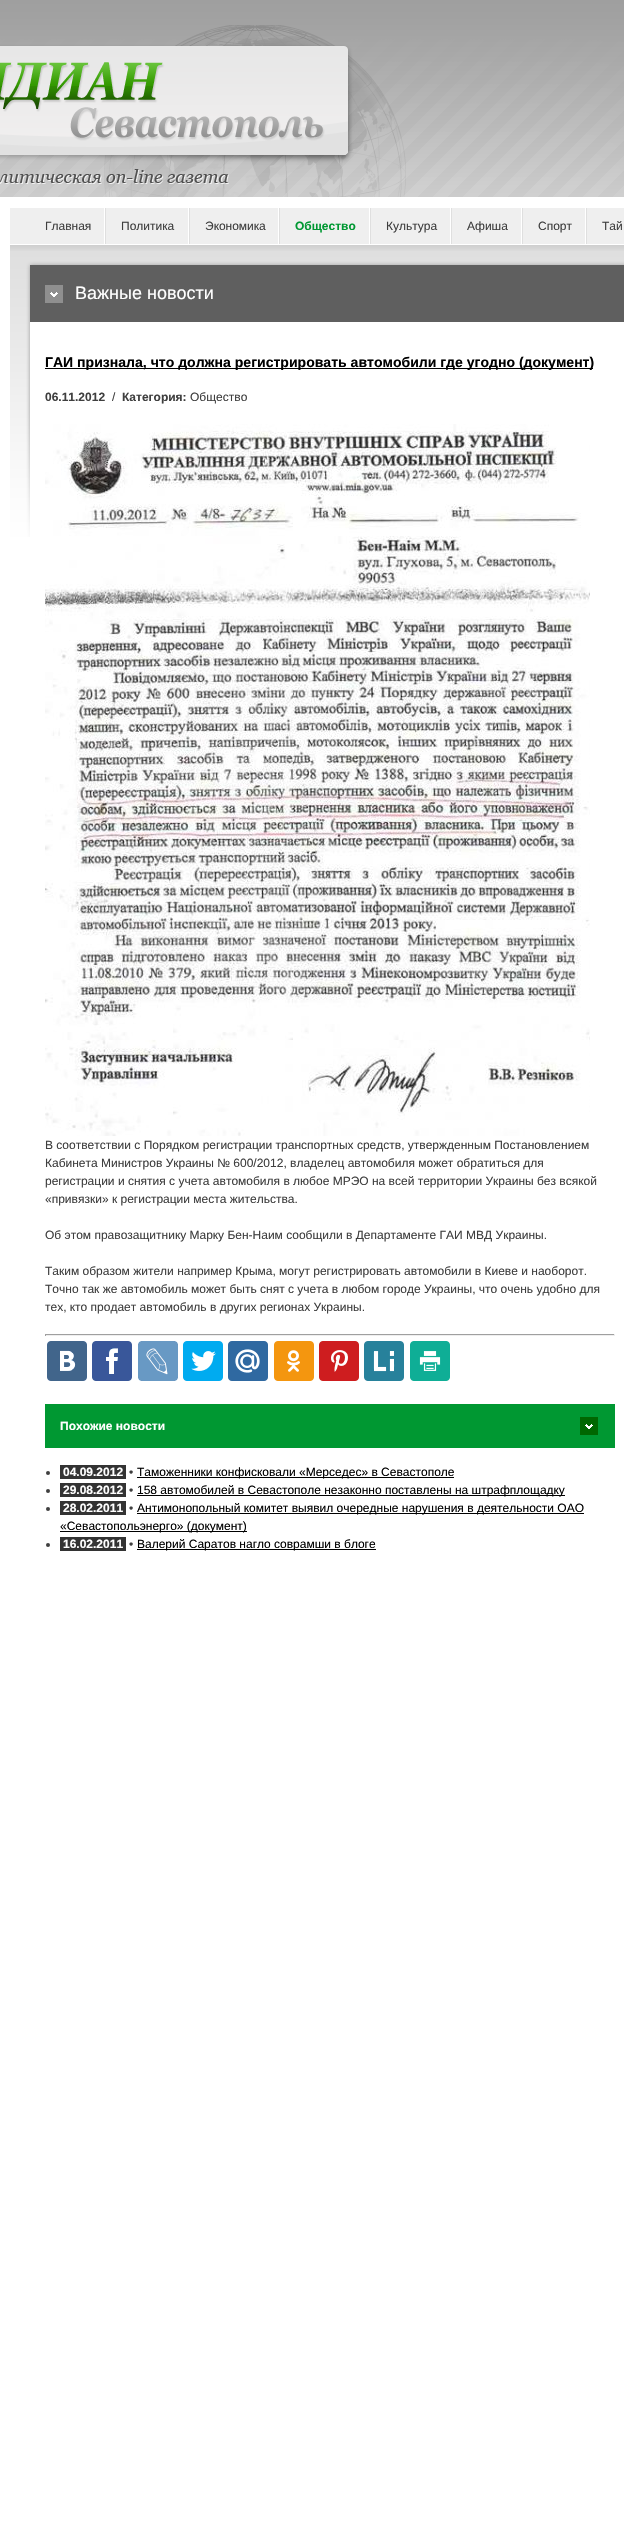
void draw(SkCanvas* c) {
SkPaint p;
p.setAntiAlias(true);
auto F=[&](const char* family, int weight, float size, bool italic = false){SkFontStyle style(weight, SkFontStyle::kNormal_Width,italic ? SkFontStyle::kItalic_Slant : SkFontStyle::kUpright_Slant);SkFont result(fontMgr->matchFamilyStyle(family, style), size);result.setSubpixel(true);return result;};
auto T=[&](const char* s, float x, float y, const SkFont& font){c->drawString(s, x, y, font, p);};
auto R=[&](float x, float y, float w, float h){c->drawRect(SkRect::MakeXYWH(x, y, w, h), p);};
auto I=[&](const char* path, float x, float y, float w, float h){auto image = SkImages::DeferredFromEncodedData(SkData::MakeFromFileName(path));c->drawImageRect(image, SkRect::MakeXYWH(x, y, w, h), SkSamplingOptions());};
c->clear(0xffffffff);
I("1.png",0,0,624,25);
I("2.png",0,25,624,172);
p.setColor(0xffefefef);
R(10,208,614,36);
I("3.png",104,208,2,36);
auto f1 = F("Liberation Sans",400,12);
p.setColor(0xff3f3f3f);
T("Главная",45,230,f1);
I("3.png",188,208,2,36);
T("Политика",121,230,f1);
I("3.png",278,208,2,36);
T("Экономика",205,230,f1);
I("3.png",369,208,2,36);
auto f2 = F("Liberation Sans",700,12);
p.setColor(0xff009832);
T("Общество",295,230,f2);
I("3.png",450,208,2,36);
p.setColor(0xff3f3f3f);
T("Культура",386,230,f1);
I("3.png",521,208,2,36);
T("Афиша",467,230,f1);
I("3.png",585,208,2,36);
T("Спорт",538,230,f1);
T("Тай",602,230,f1);
I("4.png",10,245,614,292);
p.setColor(0xff5f5f5f);
R(30,265,594,57);
I("5.png",45,285,18,18);
auto f3 = F("Liberation Sans",400,18);
p.setColor(0xffffffff);
T("Важные новости",75,299,f3);
p.setColor(0xff000000);
R(45,368,548,1);
auto f4 = F("Liberation Sans",700,14.05);
T("ГАИ признала, что должна регистрировать автомобили где угодно (документ)",45,367,f4);
p.setColor(0xff3f3f3f);
T("06.11.2012",45,401,f2);
T("/",112,401,f1);
T("Категория:",122,401,f2);
T("Общество",190,401,f1);
I("6.png",45,424,545,712);
T("В соответствии с Порядком регистрации транспортных средств, утвержденным Постановлением",45,1149,f1);
T("Кабинета Министров Украины № 600/2012, владелец автомобиля может обратиться для",45,1167,f1);
T("регистрации и снятия с учета автомобиля в любое МРЭО на всей территории Украины без всякой",45,1185,f1);
T("«привязки» к регистрации места жительства.",45,1203,f1);
T("Об этом правозащитнику Марку Бен-Наим сообщили в Департаменте ГАИ МВД Украины.",45,1239,f1);
T("Таким образом жители например Крыма, могут регистрировать автомобили в Киеве и наоборот.",45,1275,f1);
T("Точно так же автомобиль может быть снят с учета в любом городе Украины, что очень удобно для",45,1293,f1);
T("тех, кто продает автомобиль в других регионах Украины.",45,1311,f1);
p.setColor(0xff9f9f9f);
R(45,1334,570,1);
p.setColor(0xffeeeeee);
R(614,1334,1,2);
R(45,1335,570,1);
p.setColor(0xff9f9f9f);
R(45,1334,1,2);
I("7.png",47,1341,40,40);
I("8.png",92,1341,40,40);
I("9.png",138,1341,40,40);
I("10.png",183,1341,40,40);
I("11.png",228,1341,40,40);
I("12.png",274,1341,40,40);
I("13.png",319,1341,40,40);
I("14.png",364,1341,40,40);
I("15.png",410,1341,40,40);
p.setColor(0xff009832);
R(45,1404,570,44);
I("16.png",580,1417,18,18);
p.setColor(0xffffffff);
T("Похожие новости",60,1430,f2);
p.setColor(0xff3f3f3f);
c->drawCircle(48,1473,2,p);
p.setColor(0xff333333);
R(60,1465,66,14);
p.setColor(0xffffffff);
T("04.09.2012",63,1476,f2);
p.setColor(0xff3f3f3f);
T("•",129,1476,f1);
p.setColor(0xff000000);
R(137,1477,317,1);
T("Таможенники конфисковали «Мерседес» в Севастополе",137,1476,f1);
p.setColor(0xff3f3f3f);
c->drawCircle(48,1491,2,p);
p.setColor(0xff333333);
R(60,1483,66,14);
p.setColor(0xffffffff);
T("29.08.2012",63,1494,f2);
p.setColor(0xff3f3f3f);
T("•",129,1494,f1);
p.setColor(0xff000000);
R(137,1495,428,1);
T("158 автомобилей в Севастополе незаконно поставлены на штрафплощадку",137,1494,f1);
p.setColor(0xff3f3f3f);
c->drawCircle(48,1509,2,p);
p.setColor(0xff333333);
R(60,1501,66,14);
p.setColor(0xffffffff);
T("28.02.2011",63,1512,f2);
p.setColor(0xff3f3f3f);
T("•",129,1512,f1);
p.setColor(0xff000000);
R(137,1513,447,1);
T("Антимонопольный комитет выявил очередные нарушения в деятельности ОАО",137,1512,f1);
R(60,1531,187,1);
T("«Севастопольэнерго» (документ)",60,1530,f1);
p.setColor(0xff3f3f3f);
c->drawCircle(48,1545,2,p);
p.setColor(0xff333333);
R(60,1537,66,14);
p.setColor(0xffffffff);
T("16.02.2011",63,1548,f2);
p.setColor(0xff3f3f3f);
T("•",129,1548,f1);
p.setColor(0xff000000);
R(137,1549,239,1);
T("Валерий Саратов нагло соврамши в блоге",137,1548,f1);
}
